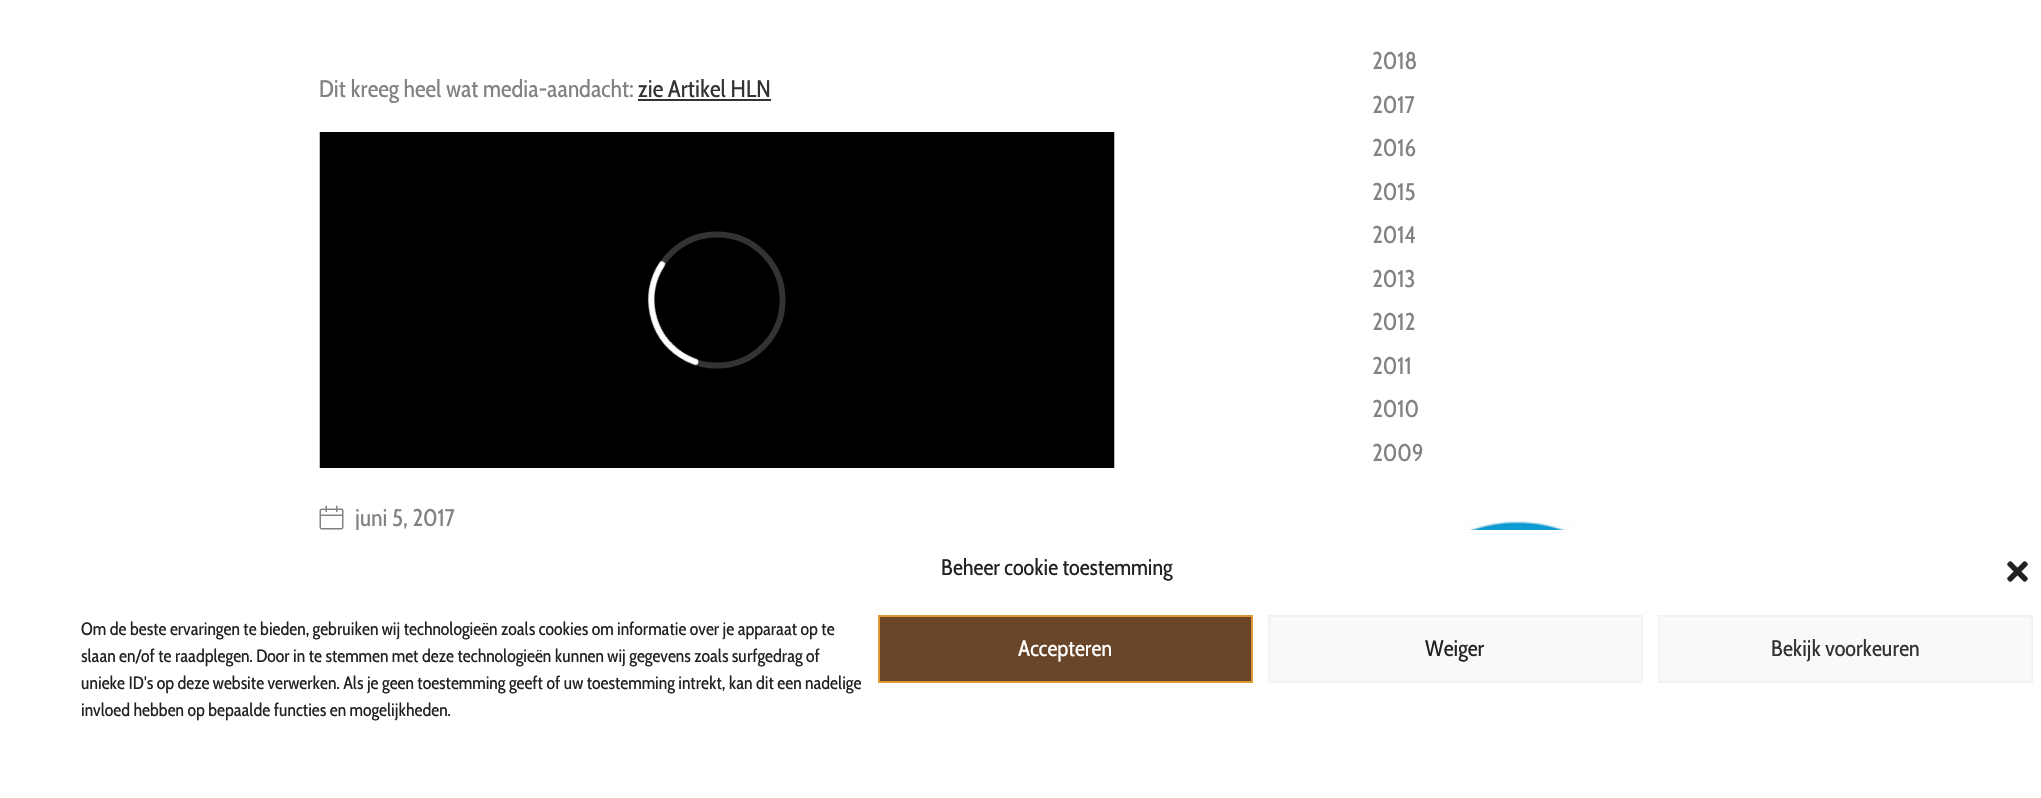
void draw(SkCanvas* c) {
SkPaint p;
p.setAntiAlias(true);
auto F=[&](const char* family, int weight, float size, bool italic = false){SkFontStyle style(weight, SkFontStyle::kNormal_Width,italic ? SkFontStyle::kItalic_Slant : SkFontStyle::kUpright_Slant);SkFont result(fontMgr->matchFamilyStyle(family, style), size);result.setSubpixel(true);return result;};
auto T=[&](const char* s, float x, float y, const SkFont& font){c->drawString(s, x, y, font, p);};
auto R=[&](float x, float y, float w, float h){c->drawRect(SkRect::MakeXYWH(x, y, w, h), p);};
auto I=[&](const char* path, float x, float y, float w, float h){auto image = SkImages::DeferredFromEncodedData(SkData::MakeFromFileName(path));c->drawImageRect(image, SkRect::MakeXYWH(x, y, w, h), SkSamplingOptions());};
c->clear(0xffffffff);
auto f1 = F("Cabin Condensed",400,24);
p.setColor(0xff828282);
T("Dit kreeg heel wat media-aandacht:",319,97,f1);
p.setColor(0xff333333);
T("zie Artikel HLN",638,97,f1);
R(638,99,133,2);
I("1.png",319,132,796,336);
I("2.png",319,505,25,25);
p.setColor(0xff828282);
T("juni 5, 2017",355,526,f1);
T("2018",1372,69,f1);
T("2017",1372,113,f1);
T("2016",1372,156,f1);
T("2015",1372,200,f1);
T("2014",1372,243,f1);
T("2013",1372,287,f1);
T("2012",1372,330,f1);
T("2011",1372,374,f1);
T("2010",1372,417,f1);
T("2009",1372,461,f1);
I("3.png",1378,521,279,9);
p.setColor(0xffffffff);
R(354,530,5,2);
auto f2 = F("Cabin Condensed",400,22.5);
p.setColor(0xff222222);
T("Beheer cookie toestemming",941,575,f2);
I("4.png",2007,561,21,21);
auto f3 = F("Cabin Condensed",400,18);
T("Om de beste ervaringen te bieden, gebruiken wij technologieën zoals cookies om informatie over je apparaat op te",81,635,f3);
T("slaan en/of te raadplegen. Door in te stemmen met deze technologieën kunnen wij gegevens zoals surfgedrag of",81,662,f3);
T("unieke ID's op deze website verwerken. Als je geen toestemming geeft of uw toestemming intrekt, kan dit een nadelige",81,689,f3);
T("invloed hebben op bepaalde functies en mogelijkheden.",81,716,f3);
p.setColor(0xff6a4528);
c->drawRect(SkRect::MakeXYWH(879,616,373,66),p);
p.setStroke(true);
p.setStrokeWidth(2);
p.setColor(0xffdd9933);
c->drawRect(SkRect::MakeXYWH(879,616,373,66),p);
p.setStroke(false);
p.setColor(0xffffffff);
T("Accepteren",1018,656,f2);
p.setColor(0xfff9f9f9);
c->drawRect(SkRect::MakeXYWH(1269,616,373,66),p);
p.setStroke(true);
p.setColor(0xfff2f2f2);
c->drawRect(SkRect::MakeXYWH(1269,616,373,66),p);
p.setStroke(false);
p.setColor(0xff222222);
T("Weiger",1425,656,f2);
p.setColor(0xfff9f9f9);
c->drawRect(SkRect::MakeXYWH(1659,616,373,66),p);
p.setStroke(true);
p.setColor(0xfff2f2f2);
c->drawRect(SkRect::MakeXYWH(1659,616,373,66),p);
p.setStroke(false);
p.setColor(0xff333333);
T("Bekijk voorkeuren",1771,656,f2);
}
